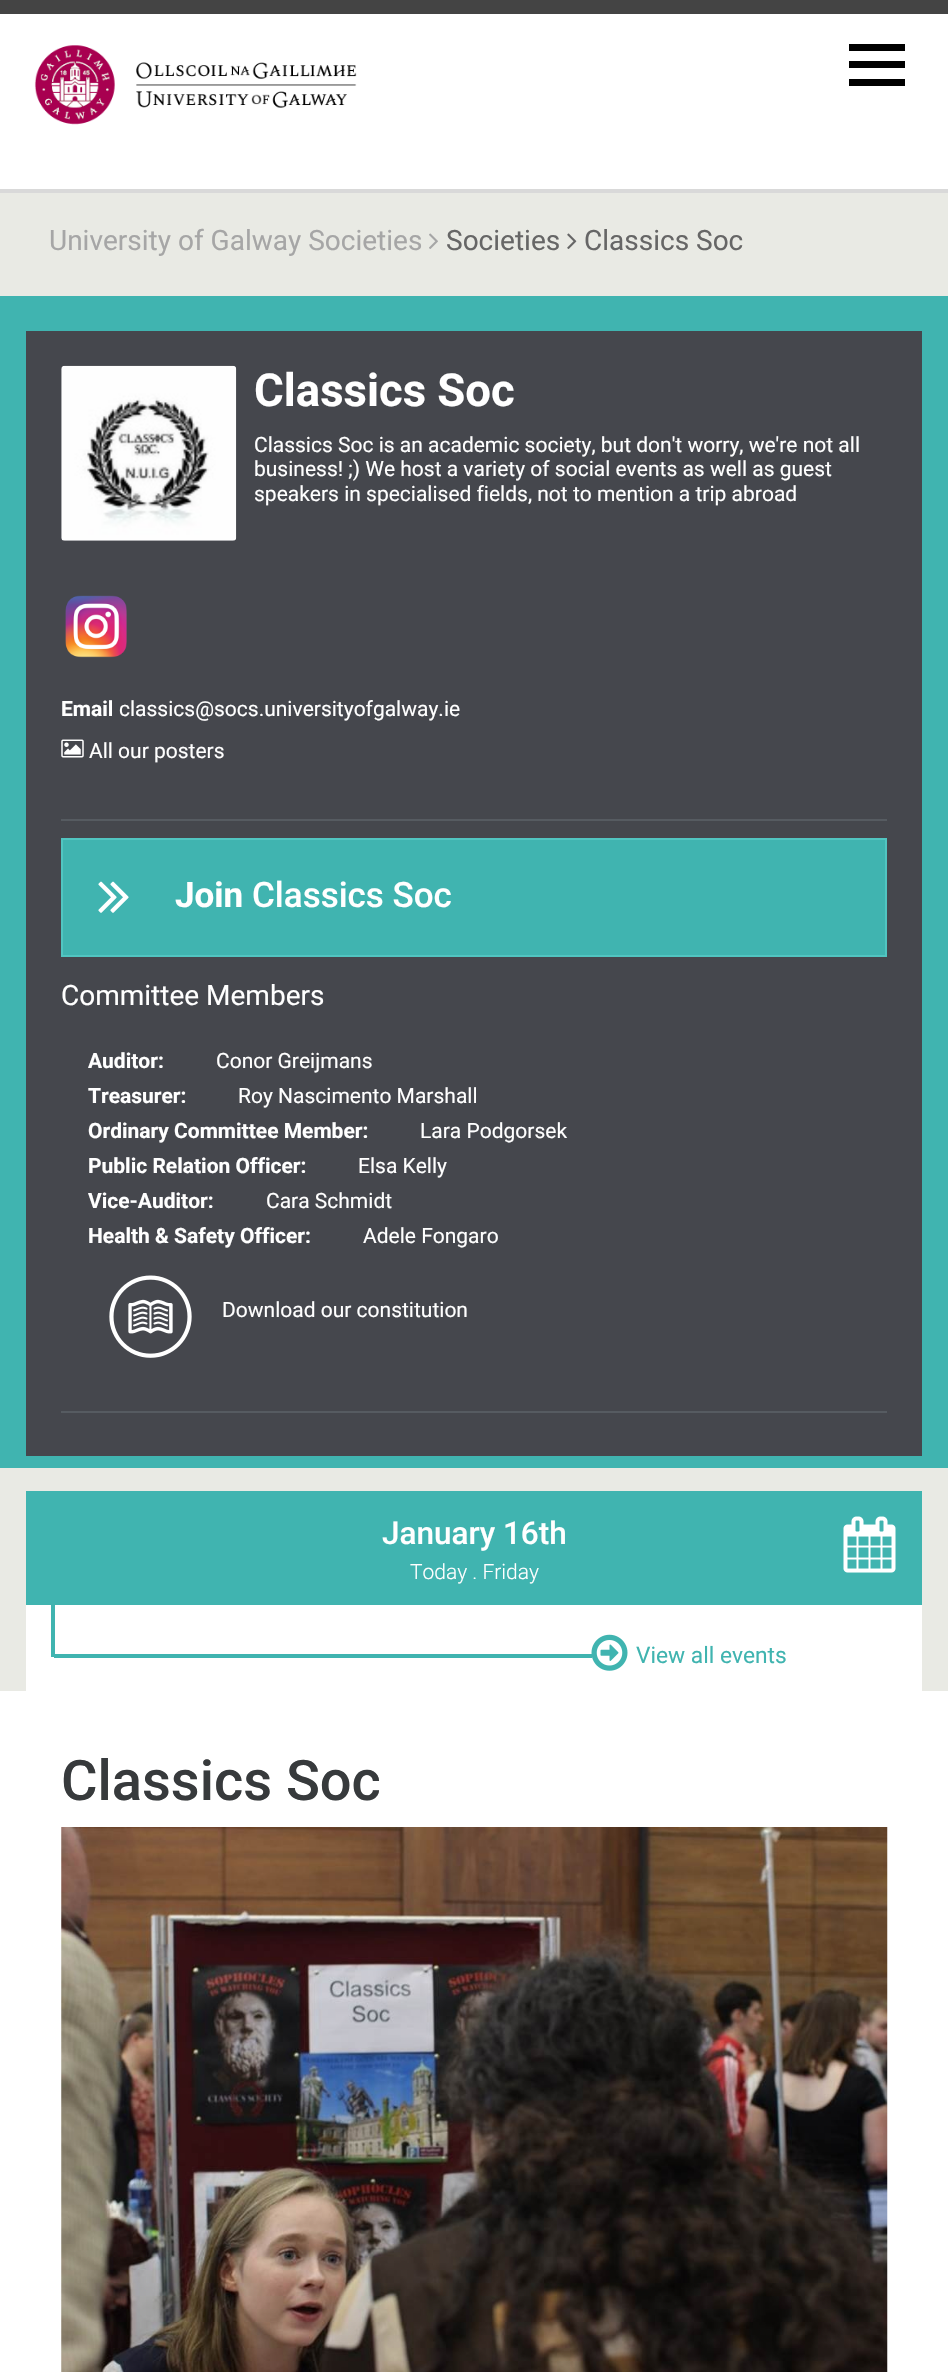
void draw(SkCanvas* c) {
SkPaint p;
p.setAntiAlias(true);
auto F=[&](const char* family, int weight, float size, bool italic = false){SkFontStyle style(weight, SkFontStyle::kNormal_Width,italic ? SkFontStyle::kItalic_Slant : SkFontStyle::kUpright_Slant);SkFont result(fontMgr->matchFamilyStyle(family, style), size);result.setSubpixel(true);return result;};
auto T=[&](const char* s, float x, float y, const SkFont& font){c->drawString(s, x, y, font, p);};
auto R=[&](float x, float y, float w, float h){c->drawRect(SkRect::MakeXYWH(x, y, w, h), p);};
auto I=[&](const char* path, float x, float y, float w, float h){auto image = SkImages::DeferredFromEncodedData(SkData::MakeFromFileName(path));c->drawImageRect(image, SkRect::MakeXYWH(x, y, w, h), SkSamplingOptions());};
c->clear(0xffffffff);
p.setColor(0xff444444);
R(0,0,948,14);
I("1.png",34,45,323,80);
p.setColor(0xff000000);
R(849,44,56,7);
R(849,61,56,7);
R(849,79,56,7);
p.setColor(0xffe9eae4);
R(0,193,948,103);
p.setColor(0xffd9d9d9);
R(0,189,948,4);
auto f1 = F("Roboto",400,28);
p.setColor(0xffa6a6a6);
T("University of Galway Societies",49,250,f1);
I("2.png",429,233,9,16);
p.setColor(0xff666666);
T("Societies",446,250,f1);
I("3.png",567,233,10,16);
T("Classics Soc",584,250,f1);
p.setColor(0xffe9eae4);
R(0,1468,948,223);
p.setColor(0xff40b4b0);
R(0,296,948,1172);
p.setColor(0xff45474d);
R(26,331,896,1125);
I("4.png",61,365,176,176);
auto f2 = F("Roboto",700,45.5);
p.setColor(0xffffffff);
T("Classics Soc",254,406,f2);
auto f3 = F("Roboto",400,21);
T("Classics Soc is an academic society, but don't worry, we're not all",254,452,f3);
T("business! ;) We host a variety of social events as well as guest",254,476,f3);
T("speakers in specialised fields, not to mention a trip abroad",254,501,f3);
p.setColor(0xff565b61);
R(61,819,826,2);
I("5.png",65,595,62,63);
auto f4 = F("Roboto",700,21);
p.setColor(0xffffffff);
T("Email",61,716,f4);
T("classics@socs.universityofgalway.ie",119,716,f3);
I("6.png",61,739,23,19);
T("All our posters",89,758,f3);
p.setColor(0xff40b4b0);
c->drawRect(SkRect::MakeXYWH(62,839,824,117),p);
p.setStroke(true);
p.setStrokeWidth(2);
p.setColor(0xff51c5c1);
c->drawRect(SkRect::MakeXYWH(62,839,824,117),p);
I("7.png",98,881,31,32);
auto f5 = F("Roboto",700,35);
p.setStroke(false);
p.setColor(0xffffffff);
T("Join",175,907,f5);
auto f6 = F("Roboto",500,35);
T("Classics Soc",252,907,f6);
p.setColor(0xff565b61);
R(61,1411,826,2);
p.setColor(0xffffffff);
T("Committee Members",61,1005,f1);
T("Auditor:",88,1068,f4);
T("Conor Greijmans",216,1068,f3);
T("Treasurer:",88,1103,f4);
T("Roy Nascimento Marshall",238,1103,f3);
T("Ordinary Committee Member:",88,1138,f4);
T("Lara Podgorsek",420,1138,f3);
T("Public Relation Officer:",88,1173,f4);
T("Elsa Kelly",358,1173,f3);
T("Vice-Auditor:",88,1208,f4);
T("Cara Schmidt",266,1208,f3);
T("Health & Safety Officer:",88,1243,f4);
T("Adele Fongaro",363,1243,f3);
I("8.png",109,1275,83,83);
T("Download our constitution",222,1317,f3);
p.setColor(0xff40b4b0);
R(26,1491,896,114);
auto f7 = F("Roboto",500,31.5);
p.setColor(0xffffffff);
T("January 16th",382,1544,f7);
I("9.png",843,1516,53,57);
auto f8 = F("Roboto",300,21);
T("Today . Friday",410,1579,f8);
R(26,1605,896,86);
I("10.png",591,1634,37,37);
p.setColor(0xff40b4b0);
R(54,1654,538,4);
R(51,1605,4,52);
auto f9 = F("Roboto",400,22.75);
T("View all events",636,1663,f9);
auto f10 = F("Roboto",500,56);
p.setColor(0xff373a3c);
T("Classics Soc",61,1800,f10);
I("11.png",61,1827,827,545);
}
